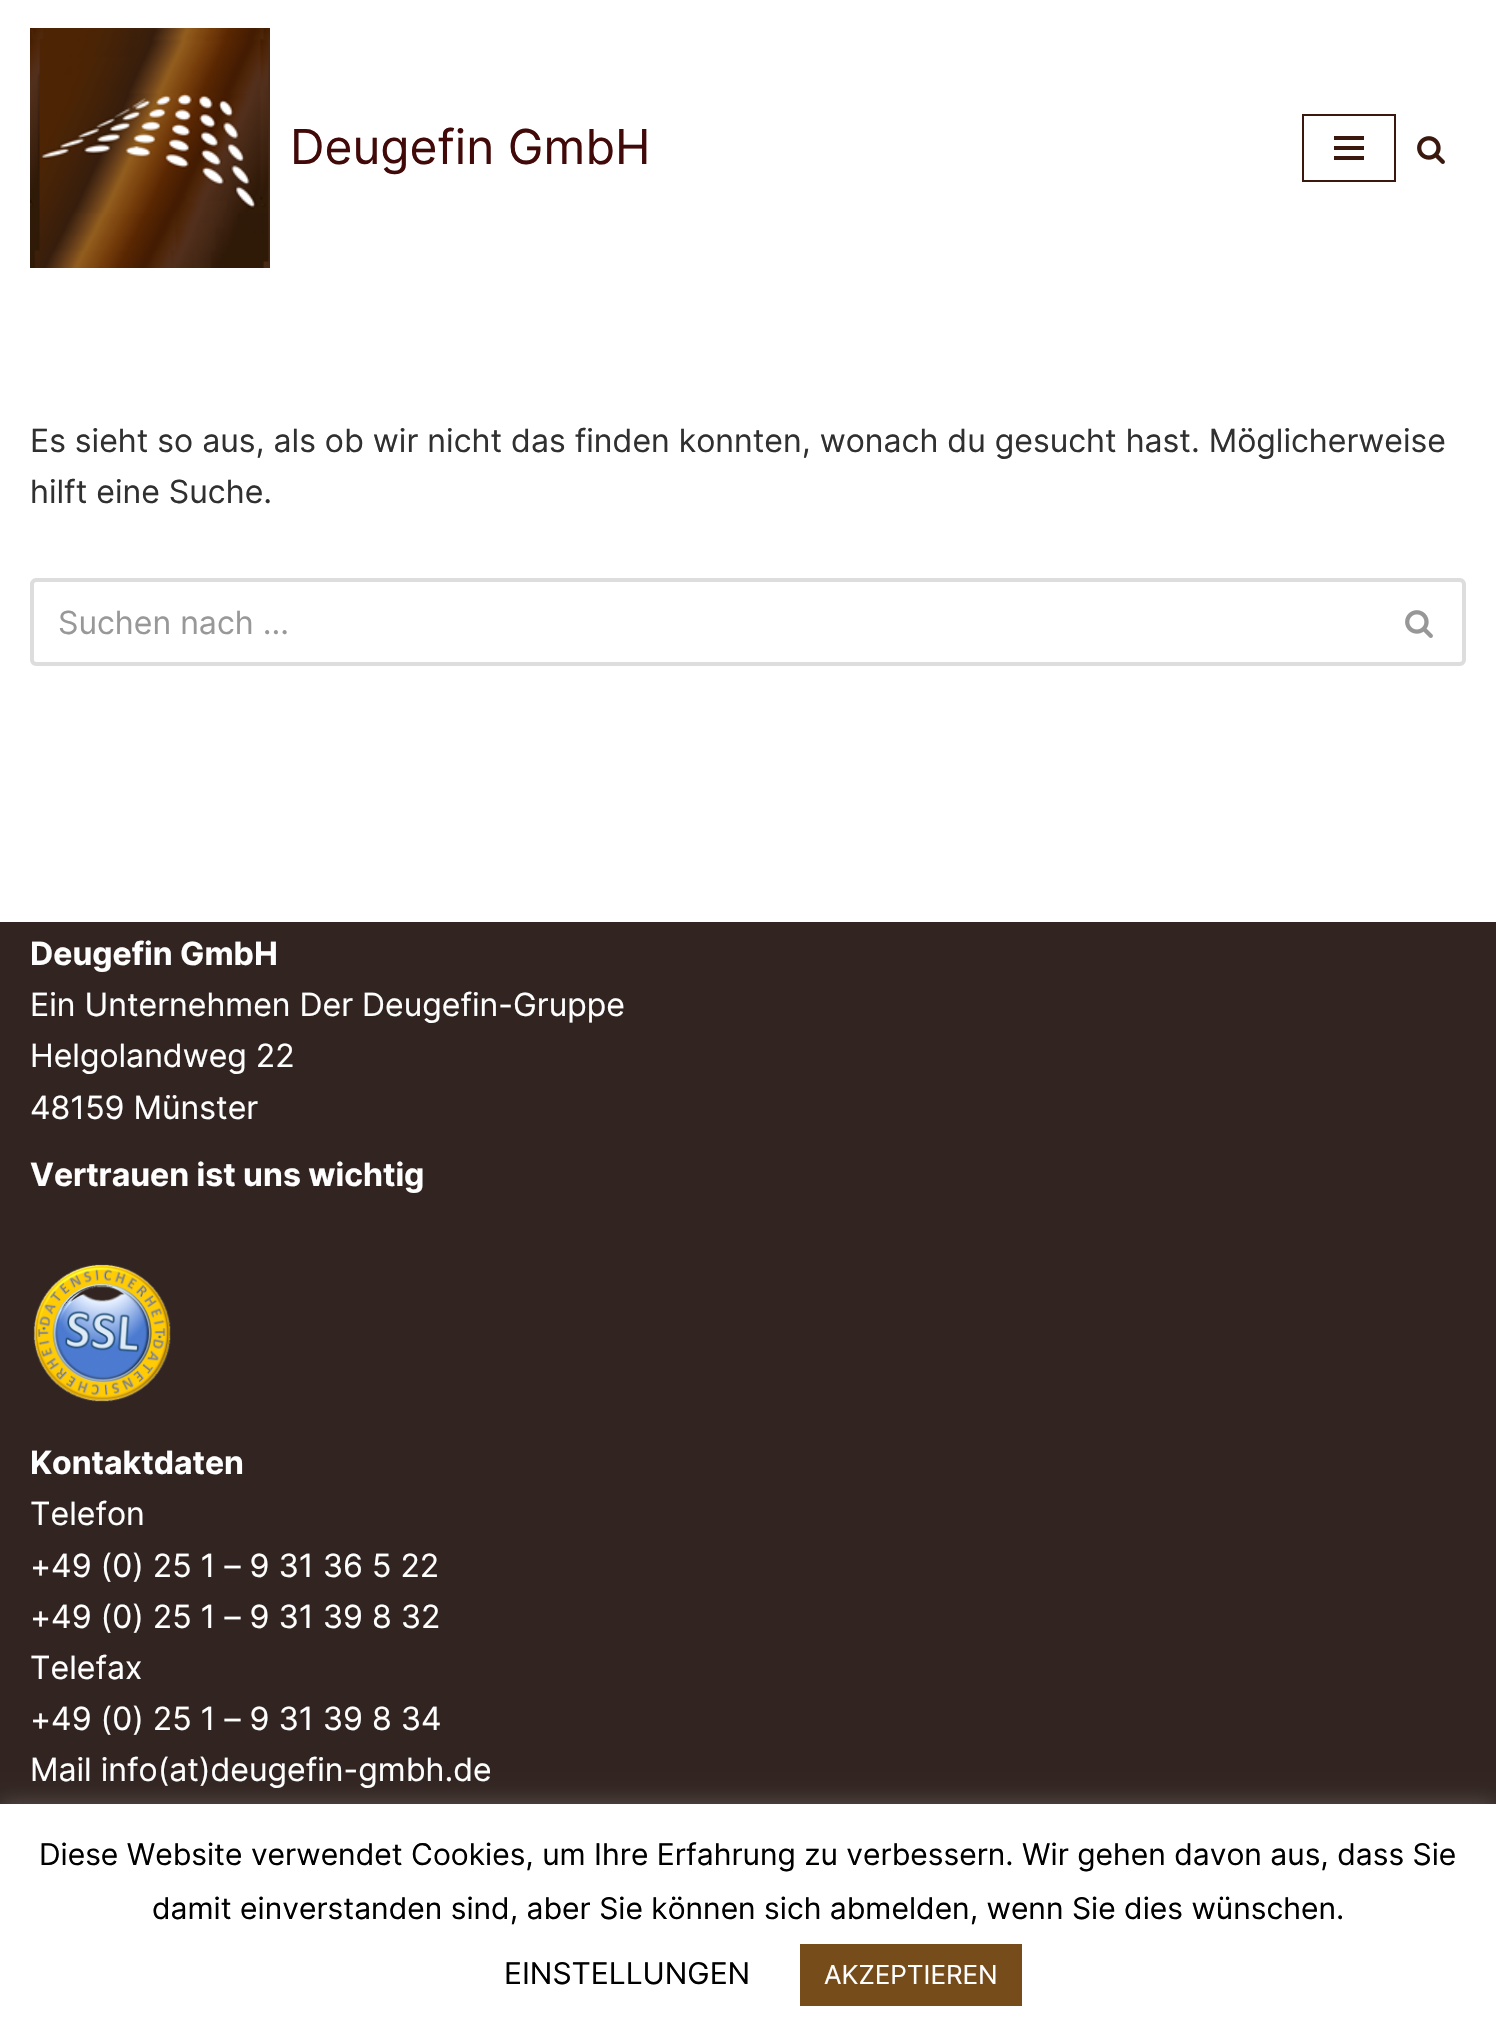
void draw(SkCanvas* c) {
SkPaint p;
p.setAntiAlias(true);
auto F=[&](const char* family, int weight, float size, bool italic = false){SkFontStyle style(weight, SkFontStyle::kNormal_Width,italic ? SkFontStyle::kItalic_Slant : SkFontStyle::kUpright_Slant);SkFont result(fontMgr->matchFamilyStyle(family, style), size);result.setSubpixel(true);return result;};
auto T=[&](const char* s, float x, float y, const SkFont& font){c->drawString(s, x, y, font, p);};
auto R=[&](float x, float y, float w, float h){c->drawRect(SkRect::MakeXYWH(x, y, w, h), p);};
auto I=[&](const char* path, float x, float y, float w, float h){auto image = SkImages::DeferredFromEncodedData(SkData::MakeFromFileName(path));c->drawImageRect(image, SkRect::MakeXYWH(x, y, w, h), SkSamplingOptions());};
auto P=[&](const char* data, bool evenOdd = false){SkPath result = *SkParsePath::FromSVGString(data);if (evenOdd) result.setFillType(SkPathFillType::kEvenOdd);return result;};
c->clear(0xffffffff);
I("1.png",30,28,240,240);
auto f1 = F("Inter",400,48);
p.setColor(0xff420909);
T("Deugefin GmbH",290,164,f1);
p.setStroke(true);
p.setStrokeWidth(2);
p.setColor(0xff3b180e);
c->drawRect(SkRect::MakeXYWH(1303,115,92,66),p);
p.setStroke(false);
R(1334,136,30,4);
R(1334,146,30,4);
R(1334,156,30,4);
I("2.png",1417,136,28,28);
auto f2 = F("Inter",400,32);
p.setColor(0xff303030);
T("Es sieht so aus, als ob wir nicht das finden konnten, wonach du gesucht hast. Möglicherweise",30,452,f2);
T("hilft eine Suche.",30,503,f2);
p.setColor(0xffdddddd);
c->drawPath(P("M36 578h1340v88h-1340c-3 0-6-3-6-6v-76c0-3 3-6 6-6zm0 4h1340v80h-1340c-1 0-2-1-2-2v-76c0-1 1-2 2-2z",true),p);
p.setColor(0xff989898);
T("Suchen nach …",58,634,f2);
p.setColor(0xffdddddd);
c->drawPath(P("M1376 578h84c3 0 6 3 6 6v76c0 3-3 6-6 6h-84zm0 4h84c1 0 2 1 2 2v76c0 1-1 2-2 2h-84z",true),p);
I("3.png",1405,610,28,28);
p.setColor(0xff322521);
R(0,922,1496,882);
auto f3 = F("Inter",700,32);
p.setColor(0xffffffff);
T("Deugefin GmbH",30,965,f3);
T("Ein Unternehmen Der Deugefin-Gruppe",30,1016,f2);
T("Helgolandweg 22",30,1067,f2);
T("48159 Münster",30,1119,f2);
T("Vertrauen ist uns wichtig",30,1186,f3);
I("4.png",33,1264,138,138);
T("Kontaktdaten",30,1474,f3);
T("Telefon",30,1525,f2);
T("+49 (0) 25 1 – 9 31 36 5 22",30,1577,f2);
T("+49 (0) 25 1 – 9 31 39 8 32",30,1628,f2);
T("Telefax",30,1679,f2);
T("+49 (0) 25 1 – 9 31 39 8 34",30,1730,f2);
T("Mail info(at)deugefin-gmbh.de",30,1781,f2);
p.setColor(0x4dacabab);
p.setMaskFilter(SkMaskFilter::MakeBlur(kNormal_SkBlurStyle, 10));
c->drawRect(SkRect::MakeXYWH(0,1802,1496,236),p);
p.setMaskFilter(nullptr);
p.setColor(0xffffffff);
R(0,1804,1496,235);
auto f4 = F("Inter",400,30);
p.setColor(0xff000000);
T("Diese Website verwendet Cookies, um Ihre Erfahrung zu verbessern. Wir gehen davon aus, dass Sie",39,1865,f4);
T("damit einverstanden sind, aber Sie können sich abmelden, wenn Sie dies wünschen.",152,1919,f4);
T("EINSTELLUNGEN",504,1984,f4);
p.setColor(0xff774c1b);
R(800,1944,222,62);
auto f5 = F("Inter",400,26);
p.setColor(0xffffffff);
T("AKZEPTIEREN",824,1984,f5);
}
